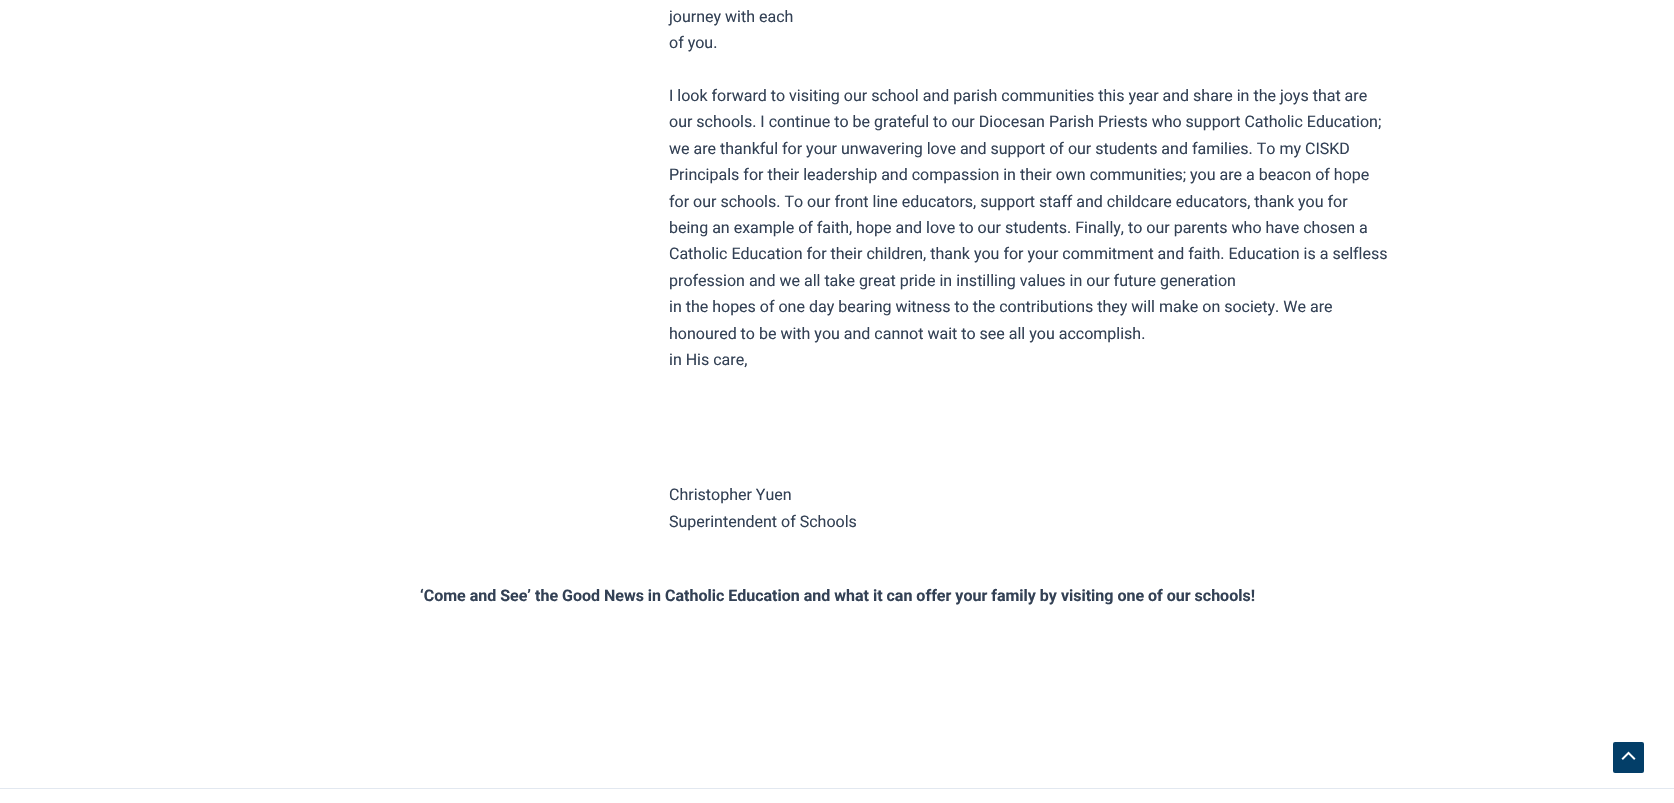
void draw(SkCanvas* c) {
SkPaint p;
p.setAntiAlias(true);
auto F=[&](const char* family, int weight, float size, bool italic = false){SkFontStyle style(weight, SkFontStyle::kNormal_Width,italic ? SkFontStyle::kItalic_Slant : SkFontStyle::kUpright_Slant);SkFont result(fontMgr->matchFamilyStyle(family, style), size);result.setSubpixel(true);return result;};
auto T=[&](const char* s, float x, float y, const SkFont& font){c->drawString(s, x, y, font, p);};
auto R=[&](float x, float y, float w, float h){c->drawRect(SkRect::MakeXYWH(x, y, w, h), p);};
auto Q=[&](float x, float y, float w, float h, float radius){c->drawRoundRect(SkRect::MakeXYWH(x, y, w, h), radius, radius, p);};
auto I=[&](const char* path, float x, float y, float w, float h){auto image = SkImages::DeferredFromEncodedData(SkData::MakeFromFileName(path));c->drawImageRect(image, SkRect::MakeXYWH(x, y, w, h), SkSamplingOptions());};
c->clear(0xffffffff);
auto f1 = F("Roboto",400,16);
p.setColor(0xff334155);
T("journey with each",669,22,f1);
T("of you.",669,48,f1);
T("I look forward to visiting our school and parish communities this year and share in the joys that are",669,101,f1);
T("our schools. I continue to be grateful to our Diocesan Parish Priests who support Catholic Education;",669,127,f1);
T("we are thankful for your unwavering love and support of our students and families. To my CISKD",669,154,f1);
T("Principals for their leadership and compassion in their own communities; you are a beacon of hope",669,180,f1);
T("for our schools. To our front line educators, support staff and childcare educators, thank you for",669,207,f1);
T("being an example of faith, hope and love to our students. Finally, to our parents who have chosen a",669,233,f1);
T("Catholic Education for their children, thank you for your commitment and faith. Education is a selfless",669,259,f1);
T("profession and we all take great pride in instilling values in our future generation",669,286,f1);
T("in the hopes of one day bearing witness to the contributions they will make on society. We are",669,312,f1);
T("honoured to be with you and cannot wait to see all you accomplish.",669,339,f1);
T("in His care,",669,365,f1);
T("Christopher Yuen",669,500,f1);
T("Superintendent of Schools",669,527,f1);
auto f2 = F("Roboto",700,16);
T("‘Come and See’ the Good News in Catholic Education and what it can offer your family by visiting one of our schools!",420,601,f2);
p.setColor(0xffe2e8f0);
R(0,788,1674,1);
p.setColor(0xff033e68);
Q(1613,742,31,31,2);
I("1.png",1621,751,15,9);
}
